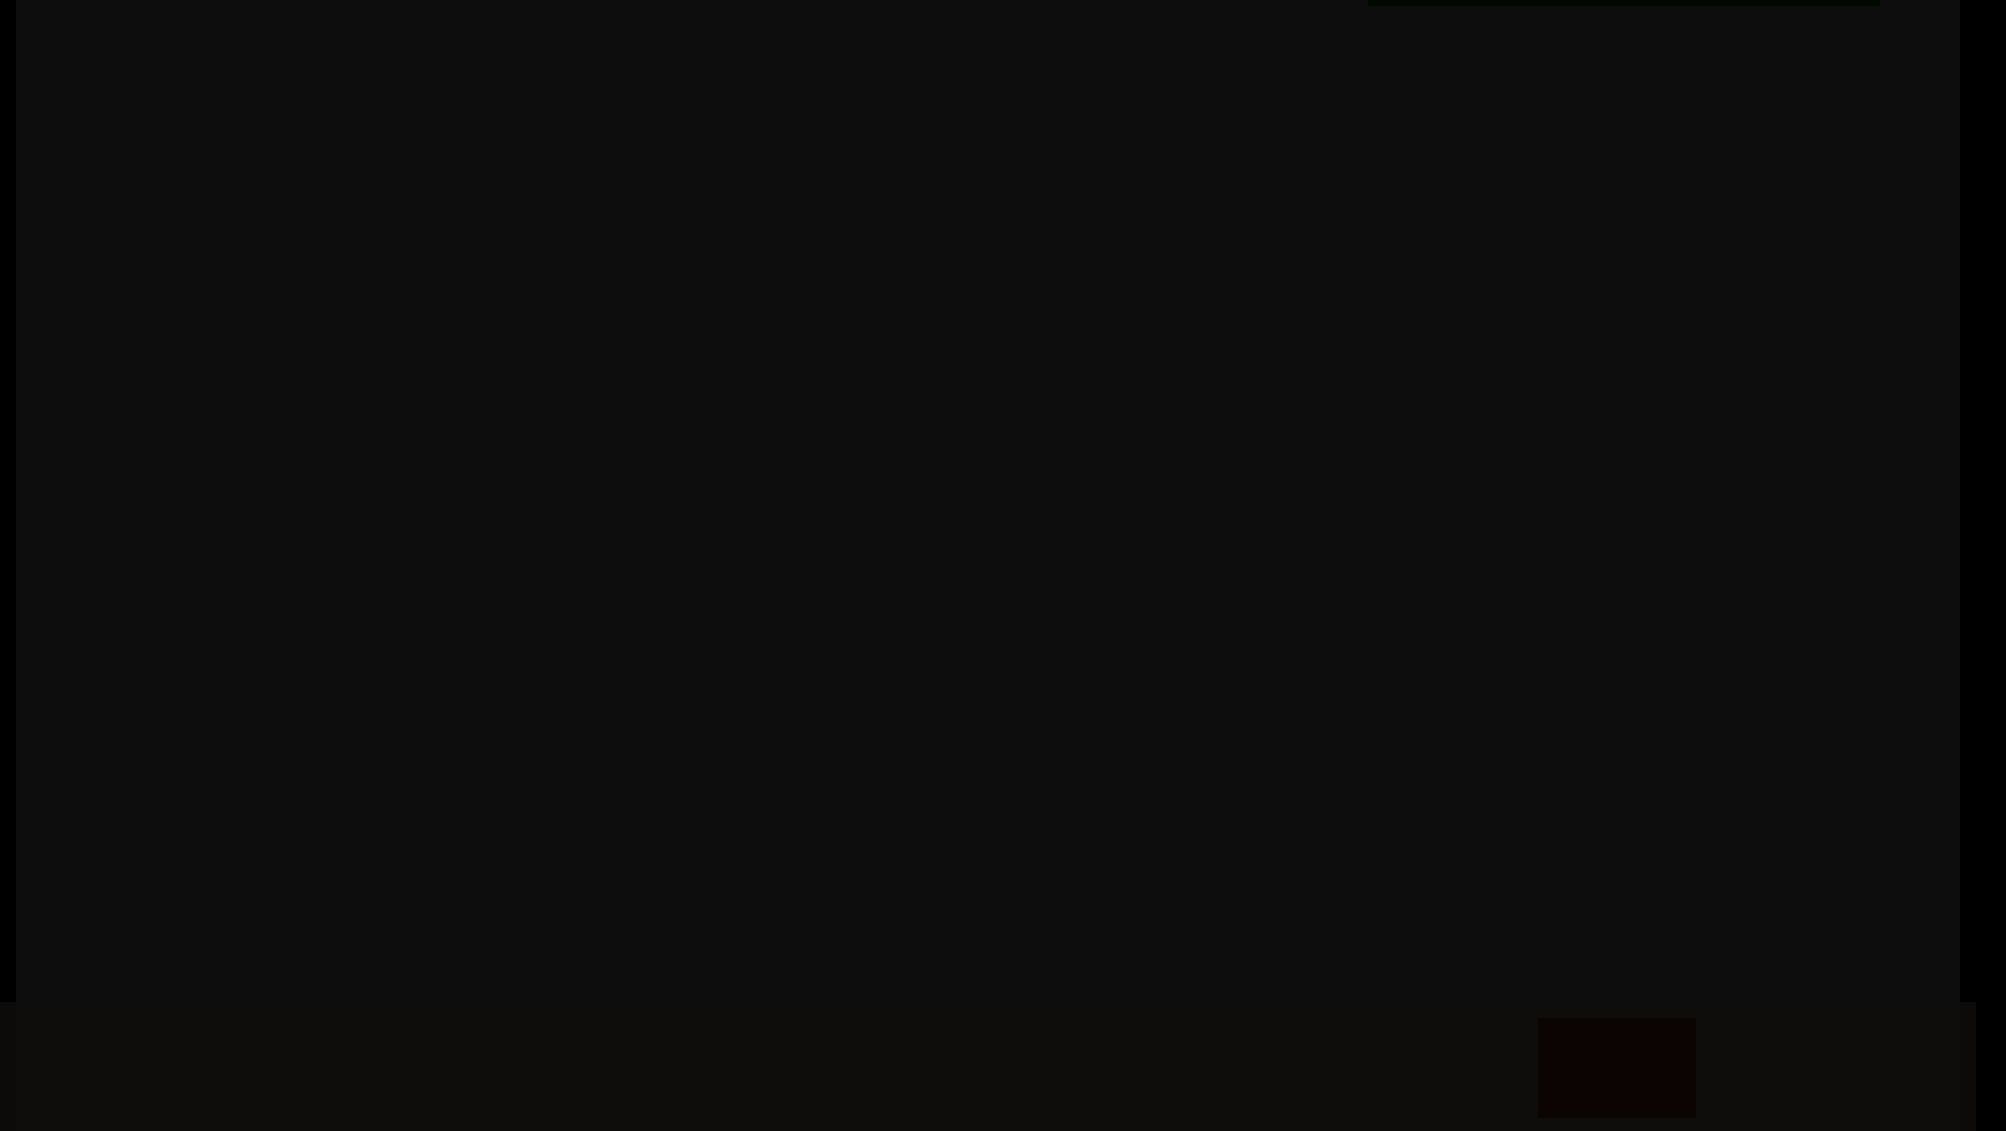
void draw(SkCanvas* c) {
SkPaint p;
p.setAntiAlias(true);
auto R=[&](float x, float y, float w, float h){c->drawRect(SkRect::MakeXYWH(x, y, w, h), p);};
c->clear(0xff000000);
p.setColor(0xff0d0d0d);
R(16,0,1944,1131);
p.setColor(0xff000800);
R(1368,0,512,6);
p.setColor(0xe60d0c0b);
R(0,1002,1976,129);
p.setColor(0xff0c0303);
R(1538,1018,158,100);
}
